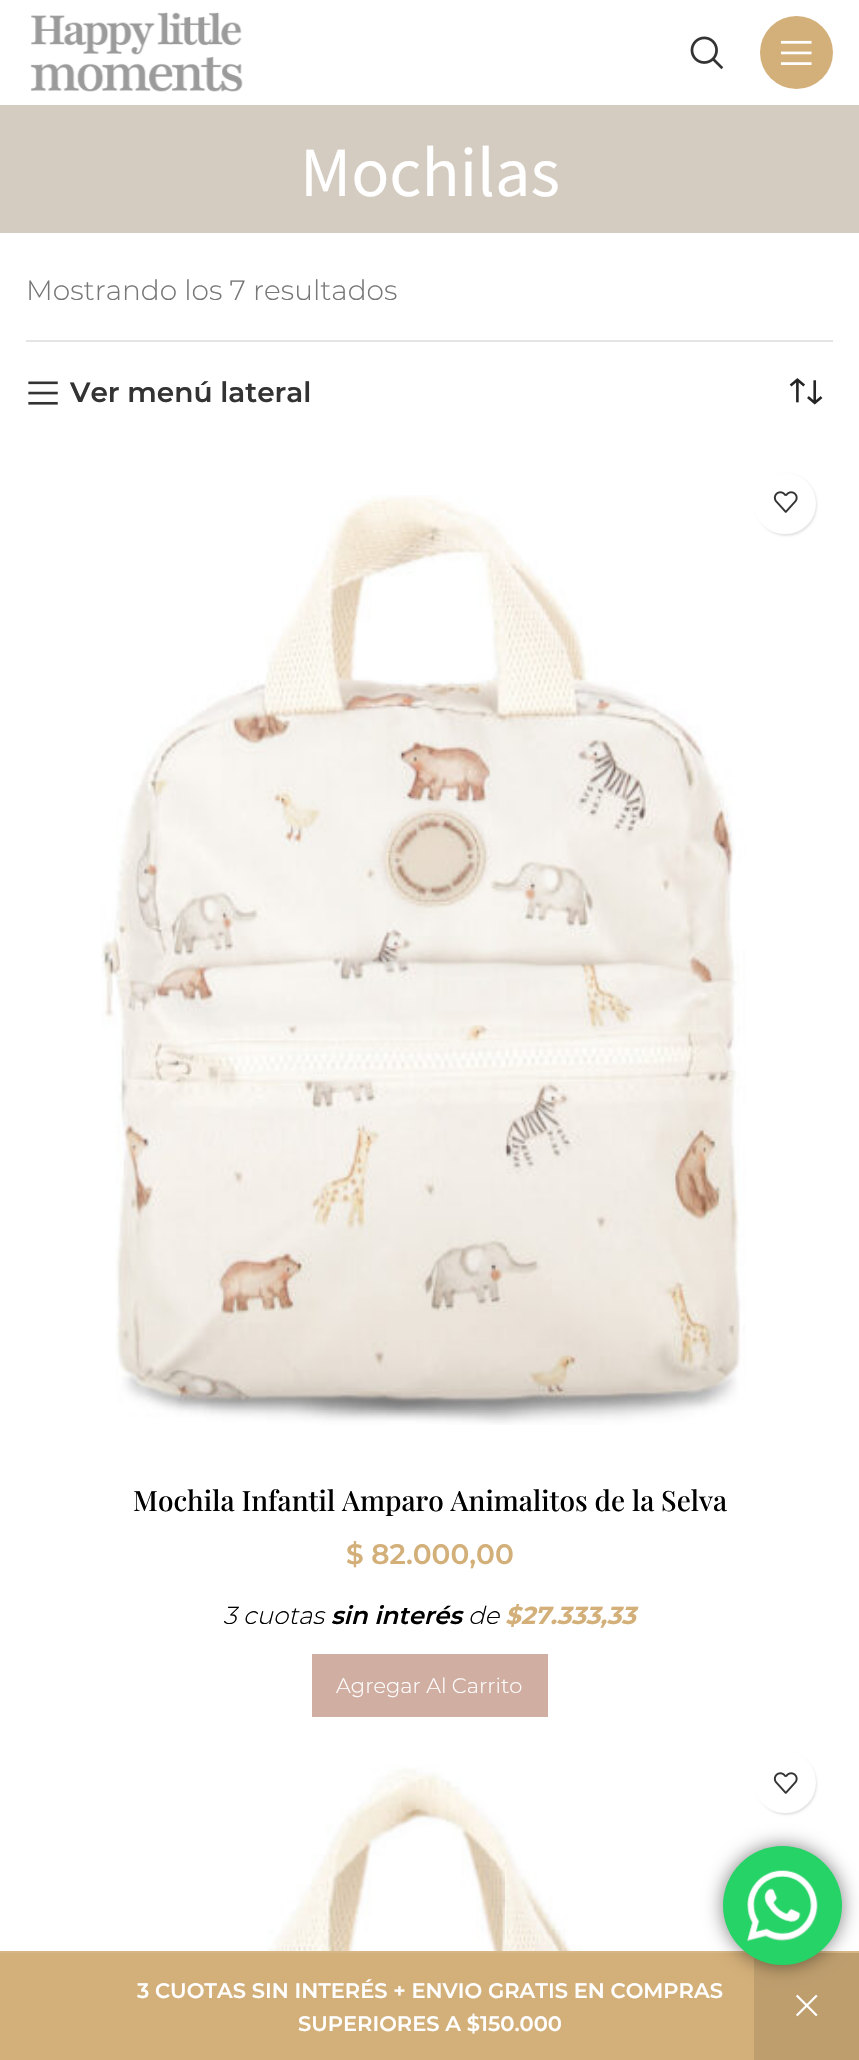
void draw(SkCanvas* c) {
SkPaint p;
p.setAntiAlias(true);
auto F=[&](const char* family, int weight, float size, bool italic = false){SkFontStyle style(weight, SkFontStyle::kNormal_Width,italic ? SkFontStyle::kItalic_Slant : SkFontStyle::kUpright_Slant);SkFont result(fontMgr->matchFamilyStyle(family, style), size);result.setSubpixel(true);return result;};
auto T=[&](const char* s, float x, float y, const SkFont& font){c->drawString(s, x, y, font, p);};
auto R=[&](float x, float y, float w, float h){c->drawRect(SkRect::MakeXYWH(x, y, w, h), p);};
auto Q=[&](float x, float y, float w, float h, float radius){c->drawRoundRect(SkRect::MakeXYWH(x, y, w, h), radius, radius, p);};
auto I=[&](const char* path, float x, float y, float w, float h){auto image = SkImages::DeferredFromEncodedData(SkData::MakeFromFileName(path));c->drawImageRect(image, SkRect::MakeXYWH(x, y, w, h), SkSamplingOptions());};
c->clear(0xffffffff);
I("1.png",30,12,213,80);
I("2.png",690,36,34,34);
p.setColor(0xffd3af79);
c->drawCircle(796.5,52.5,36.5,p);
I("3.png",780,40,32,25);
p.setColor(0xffd5ccc1);
R(0,105,859,128);
auto f1 = F("Noto Sans JP",400,63);
p.setColor(0xffffffff);
T("Mochilas",300,196,f1);
p.setColor(0xffe4e4e4);
R(26,340,807,2);
auto f2 = F("Montserrat",300,28);
p.setColor(0xff777777);
T("Mostrando los 7 resultados",26,300,f2);
I("4.png",28,381,30,24);
auto f3 = F("Montserrat",600,28);
p.setColor(0xff333333);
T("Ver menú lateral",70,402,f3);
I("5.png",789,378,34,27);
I("6.png",101,495,645,930);
p.setColor(0x1a000000);
p.setMaskFilter(SkMaskFilter::MakeBlur(kNormal_SkBlurStyle, 1));
c->drawRoundRect(SkRect::MakeXYWH(756,474,61,62),30.5,30.5,p);
p.setMaskFilter(nullptr);
p.setColor(0xffffffff);
Q(754,473,62,61,30.5);
I("7.png",773,491,25,22);
auto f4 = F("Playfair Display",500,28);
p.setColor(0xff000000);
T("Mochila Infantil Amparo Animalitos de la Selva",133,1511,f4);
p.setColor(0xffd3af79);
T("$ 82.000,00",346,1564,f3);
auto f5 = F("Montserrat",300,24.5,true);
p.setColor(0xff000000);
T("3 cuotas",223,1624,f5);
auto f6 = F("Montserrat",600,24.5,true);
T("sin interés",331,1624,f6);
T("de",468,1624,f5);
auto f7 = F("Montserrat",700,24.5,true);
p.setColor(0xffd3af79);
T("$27.333,33",505,1624,f7);
p.setColor(0xffd0aea2);
R(312,1654,236,63);
auto f8 = F("Montserrat",300,21);
p.setColor(0xffffffff);
T("Agregar Al Carrito",336,1693,f8);
I("8.png",141,1765,561,186);
p.setColor(0x1a000000);
p.setMaskFilter(SkMaskFilter::MakeBlur(kNormal_SkBlurStyle, 1));
c->drawRoundRect(SkRect::MakeXYWH(756,1754,61,61),30.5,30.5,p);
p.setMaskFilter(nullptr);
p.setColor(0xffffffff);
Q(754,1752,62,61,30.5);
I("7.png",773,1772,25,22);
p.setColor(0xffd3af79);
R(0,1953,754,107);
p.setColor(0xffd7b786);
R(0,1951,859,2);
p.setColor(0xffbe9e6d);
R(754,1953,105,107);
I("10.png",796,1994,22,23);
p.setColor(0x80000000);
p.setMaskFilter(SkMaskFilter::MakeBlur(kNormal_SkBlurStyle, 9.5));
c->drawRoundRect(SkRect::MakeXYWH(723,1846,119,119),59.5,59.5,p);
p.setMaskFilter(nullptr);
p.setColor(0xff25d366);
c->drawCircle(782.5,1905.5,59.5,p);
I("9.png",747,1870,71,71);
auto f9 = F("Montserrat",600,21);
p.setColor(0xffffffff);
T("3 CUOTAS SIN INTERÉS + ENVIO GRATIS EN COMPRAS",137,1998,f9);
T("SUPERIORES A $150.000",298,2031,f9);
}
